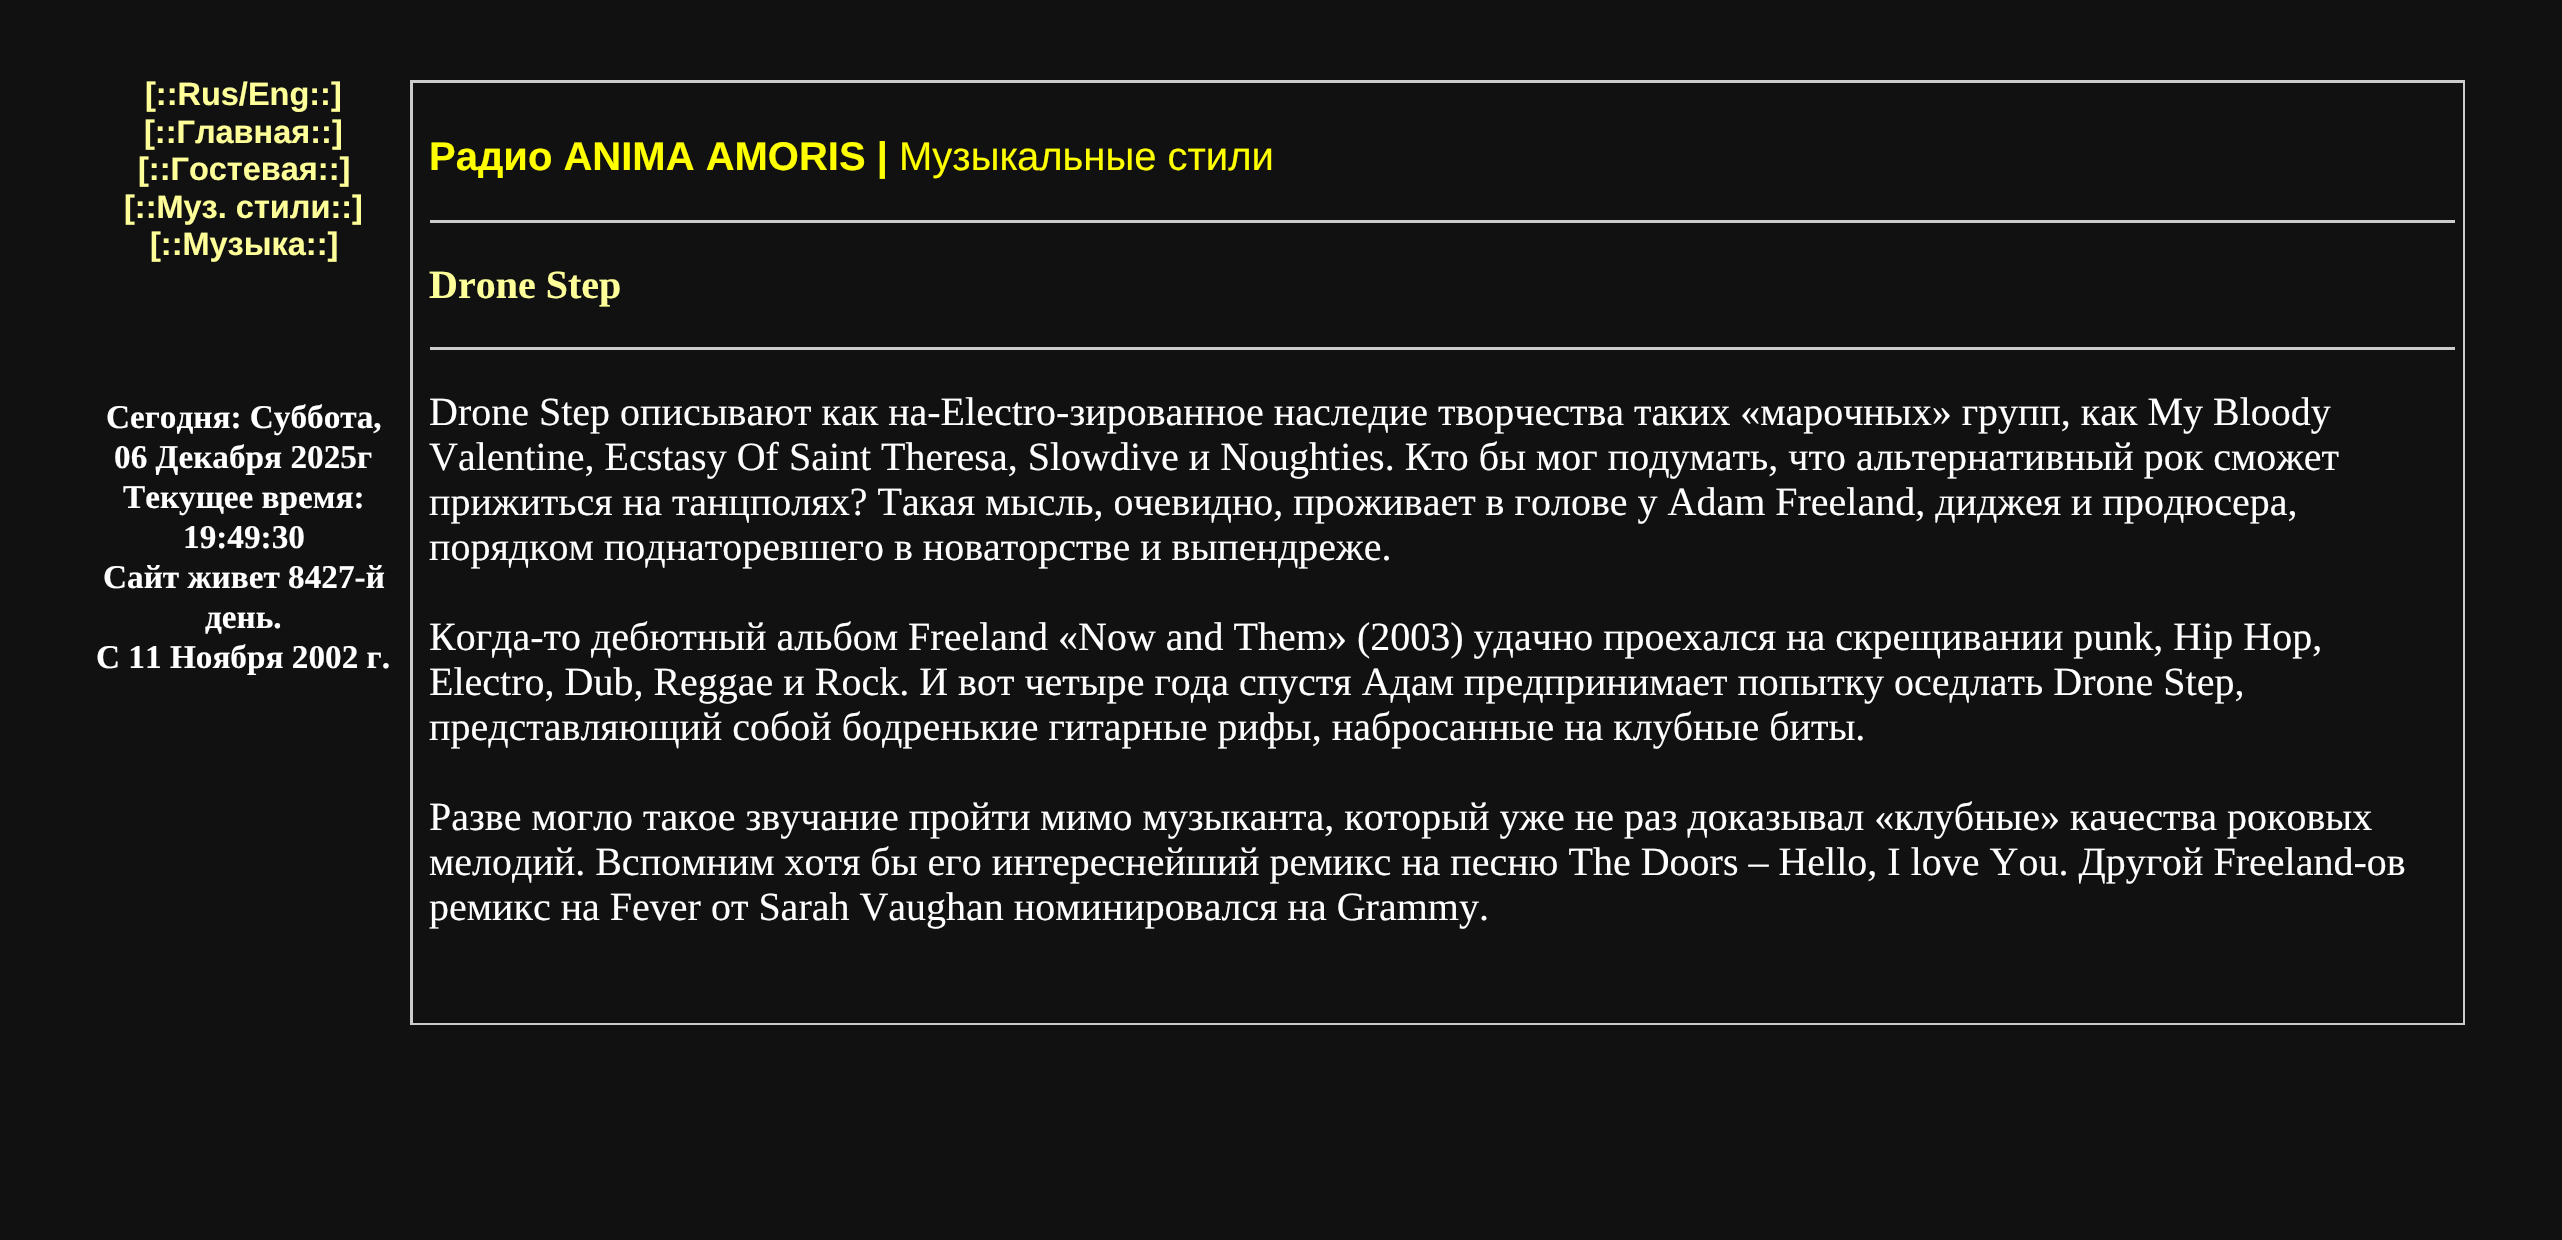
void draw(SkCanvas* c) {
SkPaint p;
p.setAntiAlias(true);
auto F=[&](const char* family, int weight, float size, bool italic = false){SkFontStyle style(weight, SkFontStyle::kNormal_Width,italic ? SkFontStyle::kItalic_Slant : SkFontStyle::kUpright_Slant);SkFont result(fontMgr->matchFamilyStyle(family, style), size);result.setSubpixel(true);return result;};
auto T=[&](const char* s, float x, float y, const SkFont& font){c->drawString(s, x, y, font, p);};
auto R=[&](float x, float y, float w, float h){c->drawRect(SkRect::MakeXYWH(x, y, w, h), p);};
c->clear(0xff111111);
auto f1 = F("Liberation Sans",700,32.5);
p.setColor(0xffffff99);
T("[::Rus/Eng::]",145,105,f1);
T("[::Главная::]",144,143,f1);
T("[::Гостевая::]",138,180,f1);
T("[::Муз. стили::]",124,218,f1);
T("[::Музыка::]",150,255,f1);
auto f2 = F("Liberation Serif",700,33.25);
p.setColor(0xffffffff);
T("Сегодня: Суббота,",106,428,f2);
T("06 Декабря 2025г",114,468,f2);
T("Текущее время:",123,508,f2);
T("19:49:30",183,548,f2);
T("Сайт живет 8427-й",103,588,f2);
T("день.",205,628,f2);
T("С 11 Ноября 2002 г.",96,668,f2);
p.setColor(0xffcccccc);
R(410,80,2055,945);
p.setColor(0xff111111);
R(413,83,2050,940);
auto f3 = F("Liberation Sans",700,40);
p.setColor(0xffffff00);
T("Радио ANIMA AMORIS |",429,170,f3);
auto f4 = F("Liberation Sans",400,40);
T("Музыкальные стили",899,170,f4);
p.setColor(0xffcccccc);
R(430,220,2025,3);
auto f5 = F("Liberation Serif",700,40);
p.setColor(0xffffff99);
T("Drone Step",429,298,f5);
p.setColor(0xffcccccc);
R(430,347,2025,3);
auto f6 = F("Liberation Serif",400,40);
p.setColor(0xffffffff);
T("Drone Step описывают как на-Electro-зированное наследие творчества таких «марочных» групп, как My Bloody",429,425,f6);
T("Valentine, Ecstasy Of Saint Theresa, Slowdive и Noughties. Кто бы мог подумать, что альтернативный рок сможет",429,470,f6);
T("прижиться на танцполях? Такая мысль, очевидно, проживает в голове у Adam Freeland, диджея и продюсера,",429,515,f6);
T("порядком поднаторевшего в новаторстве и выпендреже.",429,560,f6);
T("Когда-то дебютный альбом Freeland «Now and Them» (2003) удачно проехался на скрещивании punk, Hip Hop,",429,650,f6);
T("Electro, Dub, Reggae и Rock. И вот четыре года спустя Адам предпринимает попытку оседлать Drone Step,",429,695,f6);
T("представляющий собой бодренькие гитарные рифы, набросанные на клубные биты.",429,740,f6);
T("Разве могло такое звучание пройти мимо музыканта, который уже не раз доказывал «клубные» качества роковых",429,830,f6);
T("мелодий. Вспомним хотя бы его интереснейший ремикс на песню The Doors – Hello, I love You. Другой Freeland-ов",429,875,f6);
T("ремикс на Fever от Sarah Vaughan номинировался на Grammy.",429,920,f6);
}
